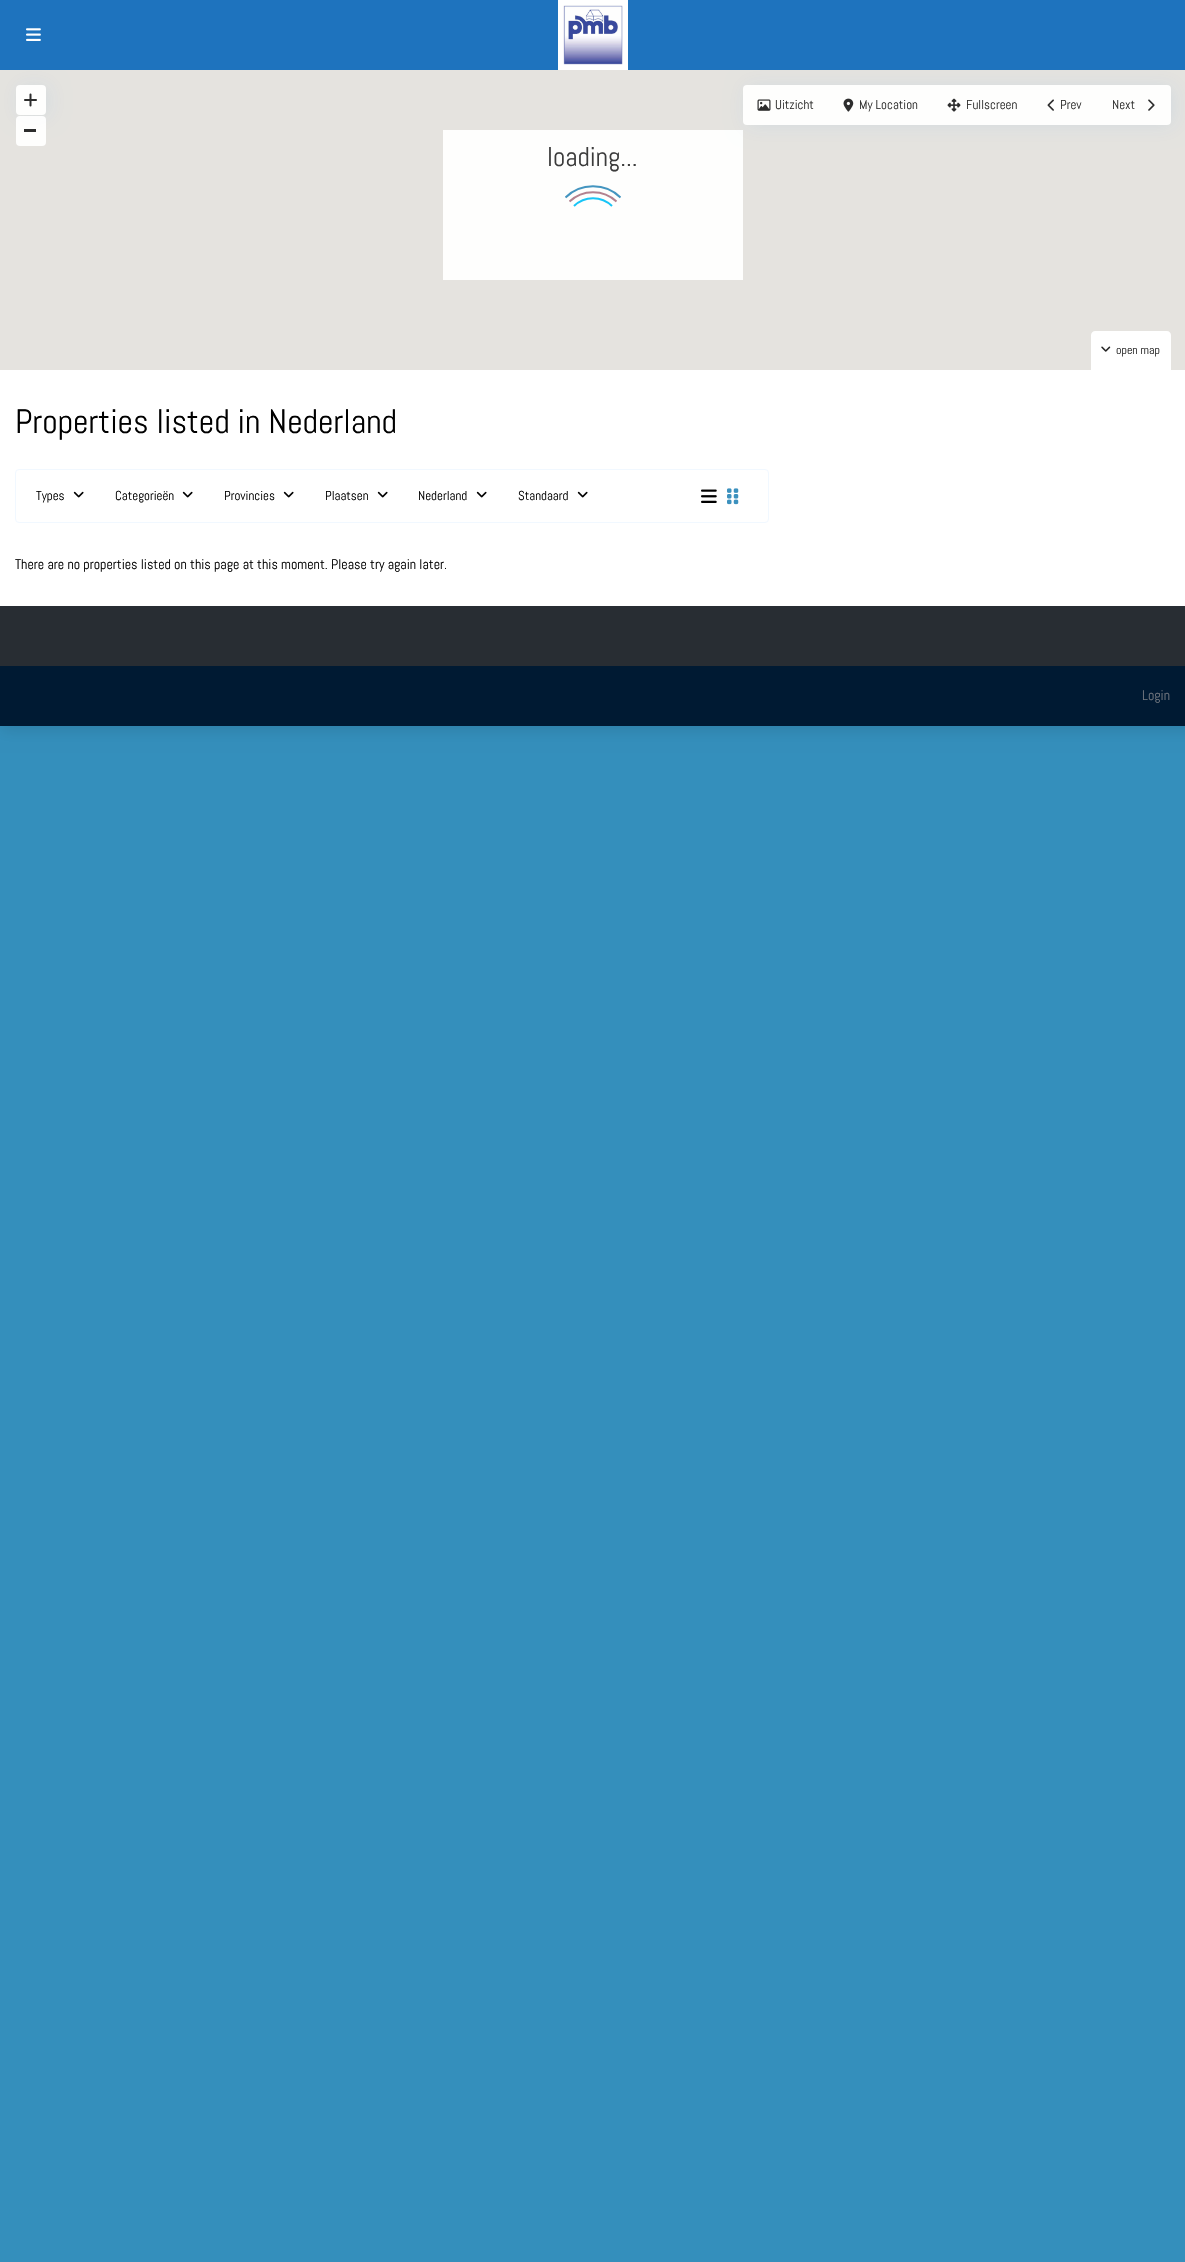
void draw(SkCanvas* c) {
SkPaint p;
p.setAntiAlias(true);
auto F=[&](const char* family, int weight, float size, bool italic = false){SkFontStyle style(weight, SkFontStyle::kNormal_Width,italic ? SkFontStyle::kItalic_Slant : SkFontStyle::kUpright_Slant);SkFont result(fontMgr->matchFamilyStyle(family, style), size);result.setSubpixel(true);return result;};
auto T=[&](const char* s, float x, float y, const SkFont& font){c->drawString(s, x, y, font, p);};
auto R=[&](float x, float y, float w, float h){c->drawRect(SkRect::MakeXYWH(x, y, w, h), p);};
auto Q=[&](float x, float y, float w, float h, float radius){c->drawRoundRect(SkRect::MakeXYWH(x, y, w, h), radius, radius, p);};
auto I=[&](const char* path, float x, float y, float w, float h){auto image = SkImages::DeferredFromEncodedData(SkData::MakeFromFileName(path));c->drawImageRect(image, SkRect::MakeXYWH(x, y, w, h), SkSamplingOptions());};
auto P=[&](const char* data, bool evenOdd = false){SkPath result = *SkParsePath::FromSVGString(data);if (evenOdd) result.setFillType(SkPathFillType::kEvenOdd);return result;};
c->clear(0xff348fbc);
p.setColor(0xffe5e3df);
R(0,70,1185,300);
p.setColor(0x14006ee1);
p.setMaskFilter(SkMaskFilter::MakeBlur(kNormal_SkBlurStyle, 10));
c->drawRoundRect(SkRect::MakeXYWH(19,86,30,30),4,4,p);
p.setMaskFilter(nullptr);
p.setColor(0xfffefefd);
R(443,130,300,150);
p.setColor(0x14006ee1);
p.setMaskFilter(SkMaskFilter::MakeBlur(kNormal_SkBlurStyle, 10));
c->drawRoundRect(SkRect::MakeXYWH(746,86,428,40),4,4,p);
p.setMaskFilter(nullptr);
p.setColor(0xff1e73be);
R(0,0,1185,70);
I("1.png",26,28,15,13);
I("2.png",558,0,70,70);
auto f1 = F("Abel",400,27);
p.setColor(0xff3c3c3c);
T("loading...",547,166,f1);
p.setStroke(true);
p.setStrokeWidth(2);
p.setColor(0xff4495c0);
c->drawPath(P("M565.5 197.5c15-15 40-15 55 0"),p);
p.setColor(0xffb38290);
c->drawPath(P("M569.5 201.5c13-12.5 34-12.5 47 0"),p);
p.setColor(0xff18c5f7);
c->drawPath(P("M574 206c10.5-10.5 27.5-10.5 38 0"),p);
p.setStroke(false);
p.setColor(0xfffefefd);
Q(16,85,30,30,4);
I("3.png",24,93,13,14);
Q(743,85,428,40,4);
I("4.png",757,99,14,12);
auto f2 = F("Abel",400,13);
p.setColor(0xff2c2c2b);
T("Uitzicht",775,109,f2);
I("5.png",843,98,11,14);
T("My Location",859,109,f2);
I("6.png",947,98,14,14);
T("Fullscreen",966,109,f2);
I("7.png",1047,99,7,12);
T("Prev",1060,109,f2);
T("Next",1112,109,f2);
I("8.png",1148,99,7,12);
p.setColor(0xf2ffffff);
Q(16,116,30,30,4);
p.setColor(0xff2d2d2d);
R(24,129,12,3);
p.setColor(0xffffffff);
c->drawPath(P("M1095 331h72c2 0 4 2 4 4v35h-80v-35c0-2 2-4 4-4z"),p);
I("9.png",1101,346,10,6);
auto f3 = F("Abel",400,12);
p.setColor(0xff222222);
T("open map",1116,354,f3);
p.setColor(0x1a000000);
p.setMaskFilter(SkMaskFilter::MakeBlur(kNormal_SkBlurStyle, 7.5));
c->drawRect(SkRect::MakeXYWH(0,611,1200,120),p);
p.setMaskFilter(nullptr);
p.setColor(0xffffffff);
R(0,370,1185,236);
auto f4 = F("Abel",400,34);
p.setColor(0xff000000);
T("Properties listed in Nederland",15,433,f4);
p.setStroke(true);
p.setStrokeWidth(1);
p.setColor(0xfff1f8ff);
c->drawRoundRect(SkRect::MakeXYWH(15.5,469.5,753,53),3.5,3.5,p);
p.setStroke(false);
p.setColor(0xff000000);
T("Types",36,500,f2);
I("10.png",73,491,11,7);
T("Categorieën",115,500,f2);
I("10.png",182,491,11,7);
T("Provincies",224,500,f2);
I("10.png",283,491,11,7);
T("Plaatsen",325,500,f2);
I("10.png",377,491,11,7);
T("Nederland",418,500,f2);
I("10.png",476,491,11,7);
T("Standaard",518,500,f2);
I("10.png",577,491,11,7);
I("11.png",701,489,16,14);
I("12.png",727,488,12,17);
auto f5 = F("Abel",400,14);
T("There are no properties listed on this page at this moment. Please try again later.",15,569,f5);
p.setColor(0xff282d33);
R(0,606,1185,60);
p.setColor(0xff001a33);
R(0,666,1185,60);
p.setColor(0xff72777f);
T("Login",1142,700,f5);
}
